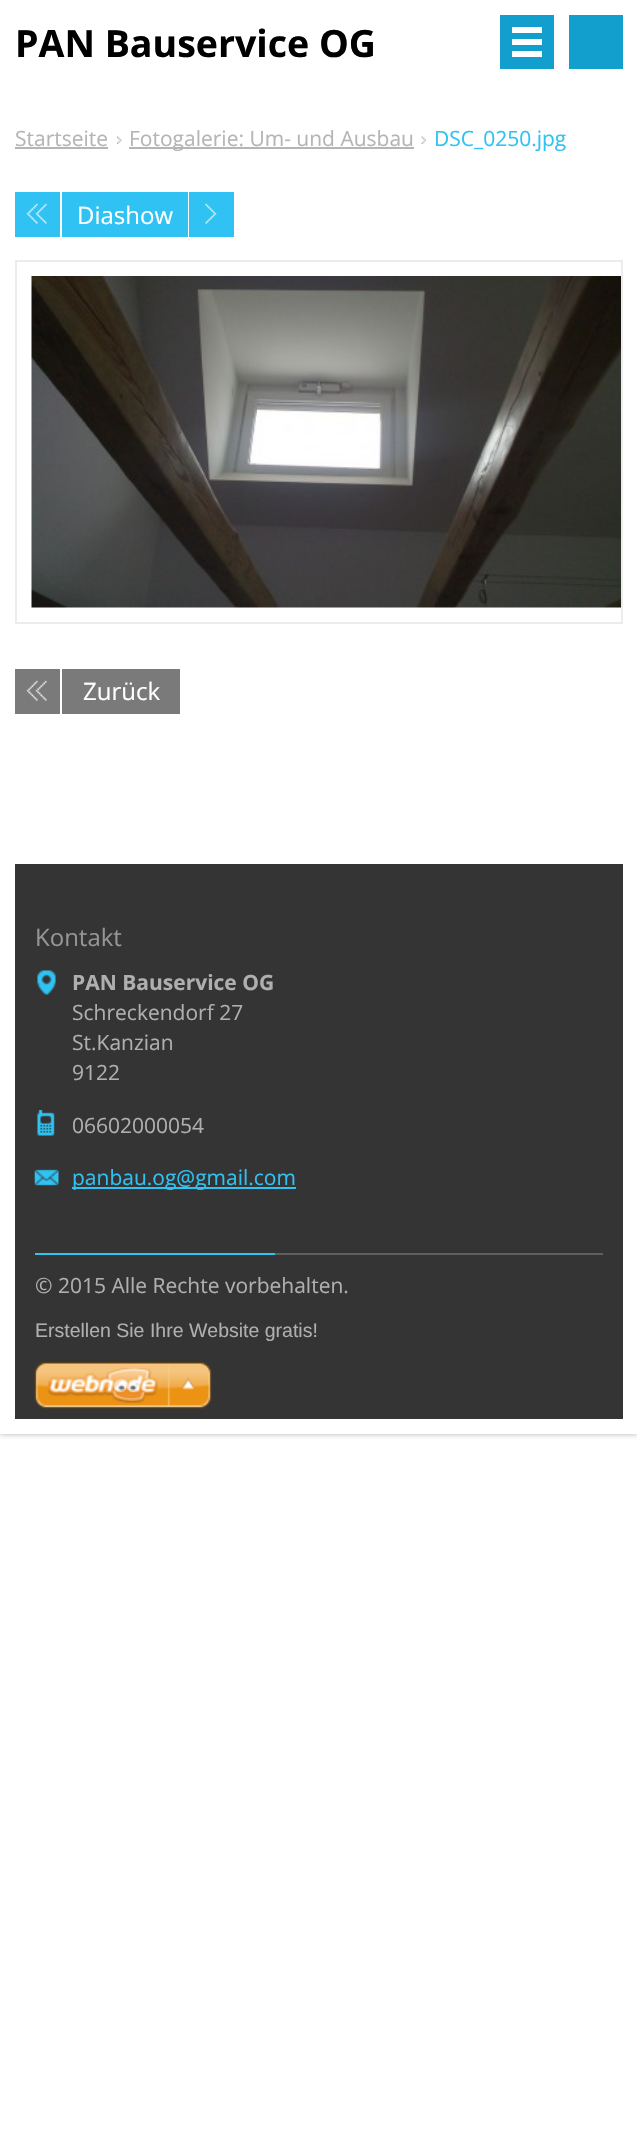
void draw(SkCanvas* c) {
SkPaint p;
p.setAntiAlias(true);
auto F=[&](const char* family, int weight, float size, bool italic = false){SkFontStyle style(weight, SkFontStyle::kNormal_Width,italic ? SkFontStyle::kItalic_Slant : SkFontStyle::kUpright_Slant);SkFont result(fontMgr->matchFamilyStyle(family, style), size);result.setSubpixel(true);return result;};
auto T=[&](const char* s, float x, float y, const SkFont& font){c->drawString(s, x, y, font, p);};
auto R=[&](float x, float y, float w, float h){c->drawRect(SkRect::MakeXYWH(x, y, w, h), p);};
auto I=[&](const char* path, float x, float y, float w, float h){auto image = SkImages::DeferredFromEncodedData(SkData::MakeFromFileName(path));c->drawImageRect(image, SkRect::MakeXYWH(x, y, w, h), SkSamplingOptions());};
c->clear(0xffffffff);
c->save();
c->clipRect(SkRect::MakeXYWH(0,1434,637,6));
p.setColor(0xbf989898);
p.setMaskFilter(SkMaskFilter::MakeBlur(kNormal_SkBlurStyle, 3));
c->drawRect(SkRect::MakeXYWH(0,0,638,1434),p);
p.setMaskFilter(nullptr);
c->restore();
auto f1 = F("Open Sans",700,37.5);
p.setColor(0xff000000);
T("PAN Bauservice OG",15,57,f1);
p.setColor(0xff129fcd);
R(500,15,54,54);
p.setColor(0xffffffff);
R(512,27,30,6);
R(512,51,30,6);
R(512,39,30,6);
p.setColor(0xff129fcd);
R(569,15,54,54);
auto f2 = F("Open Sans",400,21);
p.setColor(0xffb5b5b5);
T("Startseite",15,146,f2);
R(15,147,93,2);
I("1.png",117,136,5,8);
R(129,147,285,2);
T("Fotogalerie: Um- und Ausbau",129,146,f2);
I("2.png",421,136,5,8);
p.setColor(0xff2fc2f2);
T("DSC_0250.jpg",434,146,f2);
R(15,192,45,45);
I("3.png",26,203,21,21);
R(62,192,126,45);
auto f3 = F("Open Sans",400,24);
p.setColor(0xffffffff);
T("Diashow",77,224,f3);
p.setColor(0xff2fc2f2);
R(189,192,45,45);
I("4.png",205,203,12,21);
p.setStroke(true);
p.setStrokeWidth(2);
p.setColor(0xffececec);
c->drawRect(SkRect::MakeXYWH(16,261,606,362),p);
I("5.png",31,276,590,332);
p.setStroke(false);
p.setColor(0xff7a7a7a);
R(15,669,165,45);
I("6.png",26,680,21,21);
p.setColor(0xffffffff);
R(60,669,2,45);
T("Zurück",83,700,f3);
p.setColor(0xff343434);
R(15,864,608,555);
p.setColor(0xff959595);
T("Kontakt",35,946,f3);
I("7.png",37,970,19,25);
auto f4 = F("Open Sans",700,21);
p.setColor(0xffb0afaf);
T("PAN Bauservice OG",72,990,f4);
T("Schreckendorf 27",72,1020,f2);
T("St.Kanzian",72,1050,f2);
T("9122",72,1080,f2);
I("8.png",37,1110,18,26);
T("06602000054",72,1133,f2);
I("9.png",34,1169,25,17);
p.setColor(0xff2fc2f2);
R(72,1187,224,2);
T("panbau.og@gmail.com",72,1185,f2);
p.setColor(0xff5f5f5f);
R(275,1253,328,2);
p.setColor(0xff2fc2f2);
R(35,1253,240,2);
p.setColor(0xffb0afaf);
T("© 2015 Alle Rechte vorbehalten.",35,1293,f2);
auto f5 = F("Liberation Sans",400,19.5);
T("Erstellen Sie Ihre Website gratis!",35,1337,f5);
I("10.png",34,1362,178,47);
}
